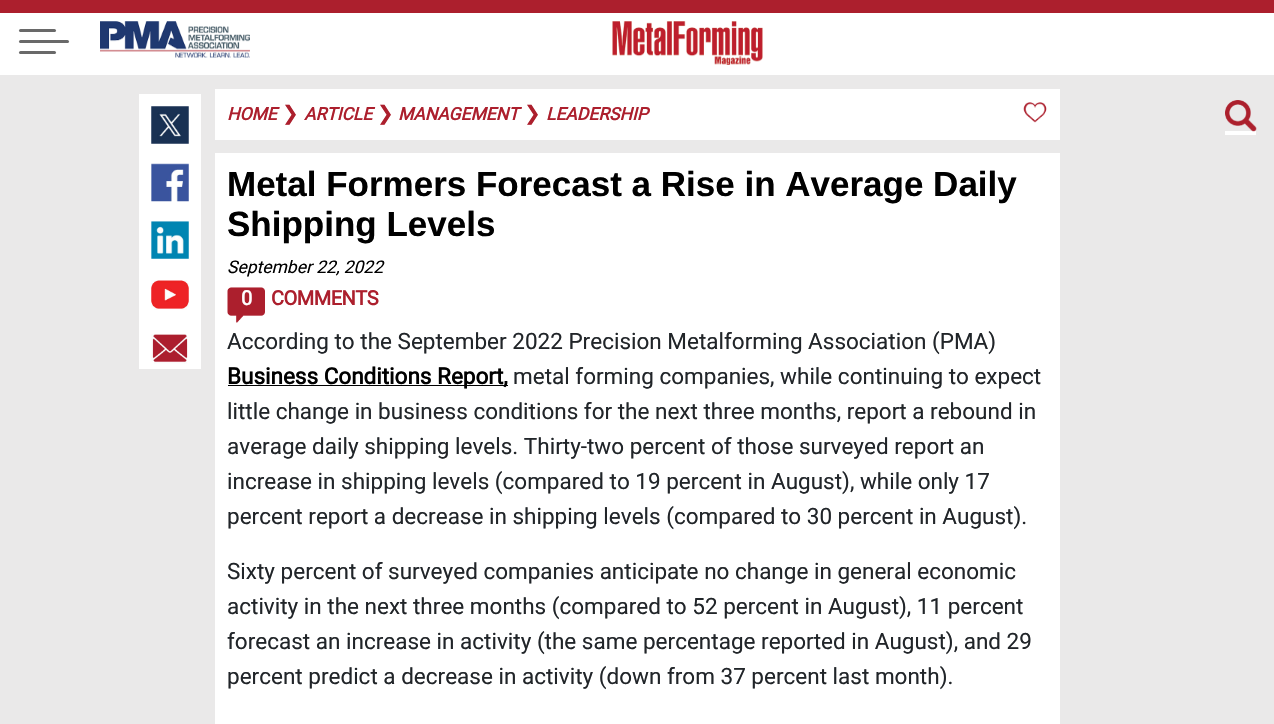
void draw(SkCanvas* c) {
SkPaint p;
p.setAntiAlias(true);
auto F=[&](const char* family, int weight, float size, bool italic = false){SkFontStyle style(weight, SkFontStyle::kNormal_Width,italic ? SkFontStyle::kItalic_Slant : SkFontStyle::kUpright_Slant);SkFont result(fontMgr->matchFamilyStyle(family, style), size);result.setSubpixel(true);return result;};
auto T=[&](const char* s, float x, float y, const SkFont& font){c->drawString(s, x, y, font, p);};
auto L=[&](const char* s, float x, float y, const SkFont& font, const SkPaint& ink, float letter, float word){std::vector<SkGlyphID> glyphs(font.countText(s, strlen(s), SkTextEncoding::kUTF8));std::vector<float> xs(glyphs.size());font.textToGlyphs(s, strlen(s), SkTextEncoding::kUTF8, glyphs);font.getXPos(glyphs, xs, x);float extra = 0;for (size_t i = 0; i < glyphs.size(); i++) {xs[i] += extra;extra += letter + word * (glyphs[i] == font.unicharToGlyph(' '));}c->drawTextBlob(SkTextBlob::MakeFromPosHGlyphs(glyphs, xs, y, font), 0, 0, ink);};
auto R=[&](float x, float y, float w, float h){c->drawRect(SkRect::MakeXYWH(x, y, w, h), p);};
auto Q=[&](float x, float y, float w, float h, float radius){c->drawRoundRect(SkRect::MakeXYWH(x, y, w, h), radius, radius, p);};
auto I=[&](const char* path, float x, float y, float w, float h){auto image = SkImages::DeferredFromEncodedData(SkData::MakeFromFileName(path));c->drawImageRect(image, SkRect::MakeXYWH(x, y, w, h), SkSamplingOptions());};
c->clear(0xffeae9e9);
p.setColor(0xffffffff);
R(0,13,1274,62);
p.setColor(0xffac1f2d);
R(0,0,1274,13);
p.setColor(0xff696969);
Q(19,29,37,3,1.5);
Q(19,40,50,3,1.5);
Q(19,51,37,3,1.5);
I("1.png",100,21,150,37);
I("2.png",612,21,151,44);
p.setColor(0xffffffff);
R(1225,131,31,4);
I("3.png",1225,100,32,32);
R(139,94,62,275);
I("4.png",151,106,38,38);
I("5.png",151,163,38,39);
I("6.png",151,221,38,38);
I("7.png",151,280,38,30);
I("8.png",151,334,37,30);
R(215,89,845,51);
auto f1 = F("Roboto",700,17.5,true);
p.setColor(0xffac1f2d);
T("HOME",227,120,f1);
auto f2 = F("DejaVu Sans",400,20);
T("❯",282,120,f2);
T("ARTICLE",304,120,f1);
T("❯",377,120,f2);
T("MANAGEMENT",398,120,f1);
T("❯",524,120,f2);
T("LEADERSHIP",546,120,f1);
I("9.png",1023,102,24,21);
p.setColor(0xffffffff);
R(215,153,845,571);
auto f3 = F("Liberation Sans",700,35);
p.setColor(0xff000000);
T("Metal Formers Forecast a Rise in Average Daily",227,196,f3);
T("Shipping Levels",227,236,f3);
auto f4 = F("Roboto",400,17.5,true);
T("September 22, 2022",227,273,f4);
I("10.png",227,287,38,36);
auto f5 = F("Roboto",700,20);
p.setColor(0xffffffff);
L("0",241,305,f5,p,-1,0);
p.setColor(0xffac1f2d);
L("COMMENTS",271,305,f5,p,-.5,0);
auto f6 = F("Roboto",400,22.5);
p.setColor(0xff212529);
T("According to the September 2022 Precision Metalforming Association (PMA)",227,349,f6);
p.setColor(0xff000000);
R(228,385,280,1);
auto f7 = F("Roboto",700,22.5);
T("Business Conditions Report,",227,384,f7);
p.setColor(0xff212529);
T("metal forming companies, while continuing to expect",513,384,f6);
T("little change in business conditions for the next three months, report a rebound in",227,419,f6);
T("average daily shipping levels. Thirty-two percent of those surveyed report an",227,454,f6);
T("increase in shipping levels (compared to 19 percent in August), while only 17",227,489,f6);
T("percent report a decrease in shipping levels (compared to 30 percent in August).",227,524,f6);
T("Sixty percent of surveyed companies anticipate no change in general economic",227,579,f6);
T("activity in the next three months (compared to 52 percent in August), 11 percent",227,614,f6);
T("forecast an increase in activity (the same percentage reported in August), and 29",227,649,f6);
T("percent predict a decrease in activity (down from 37 percent last month).",227,684,f6);
}
